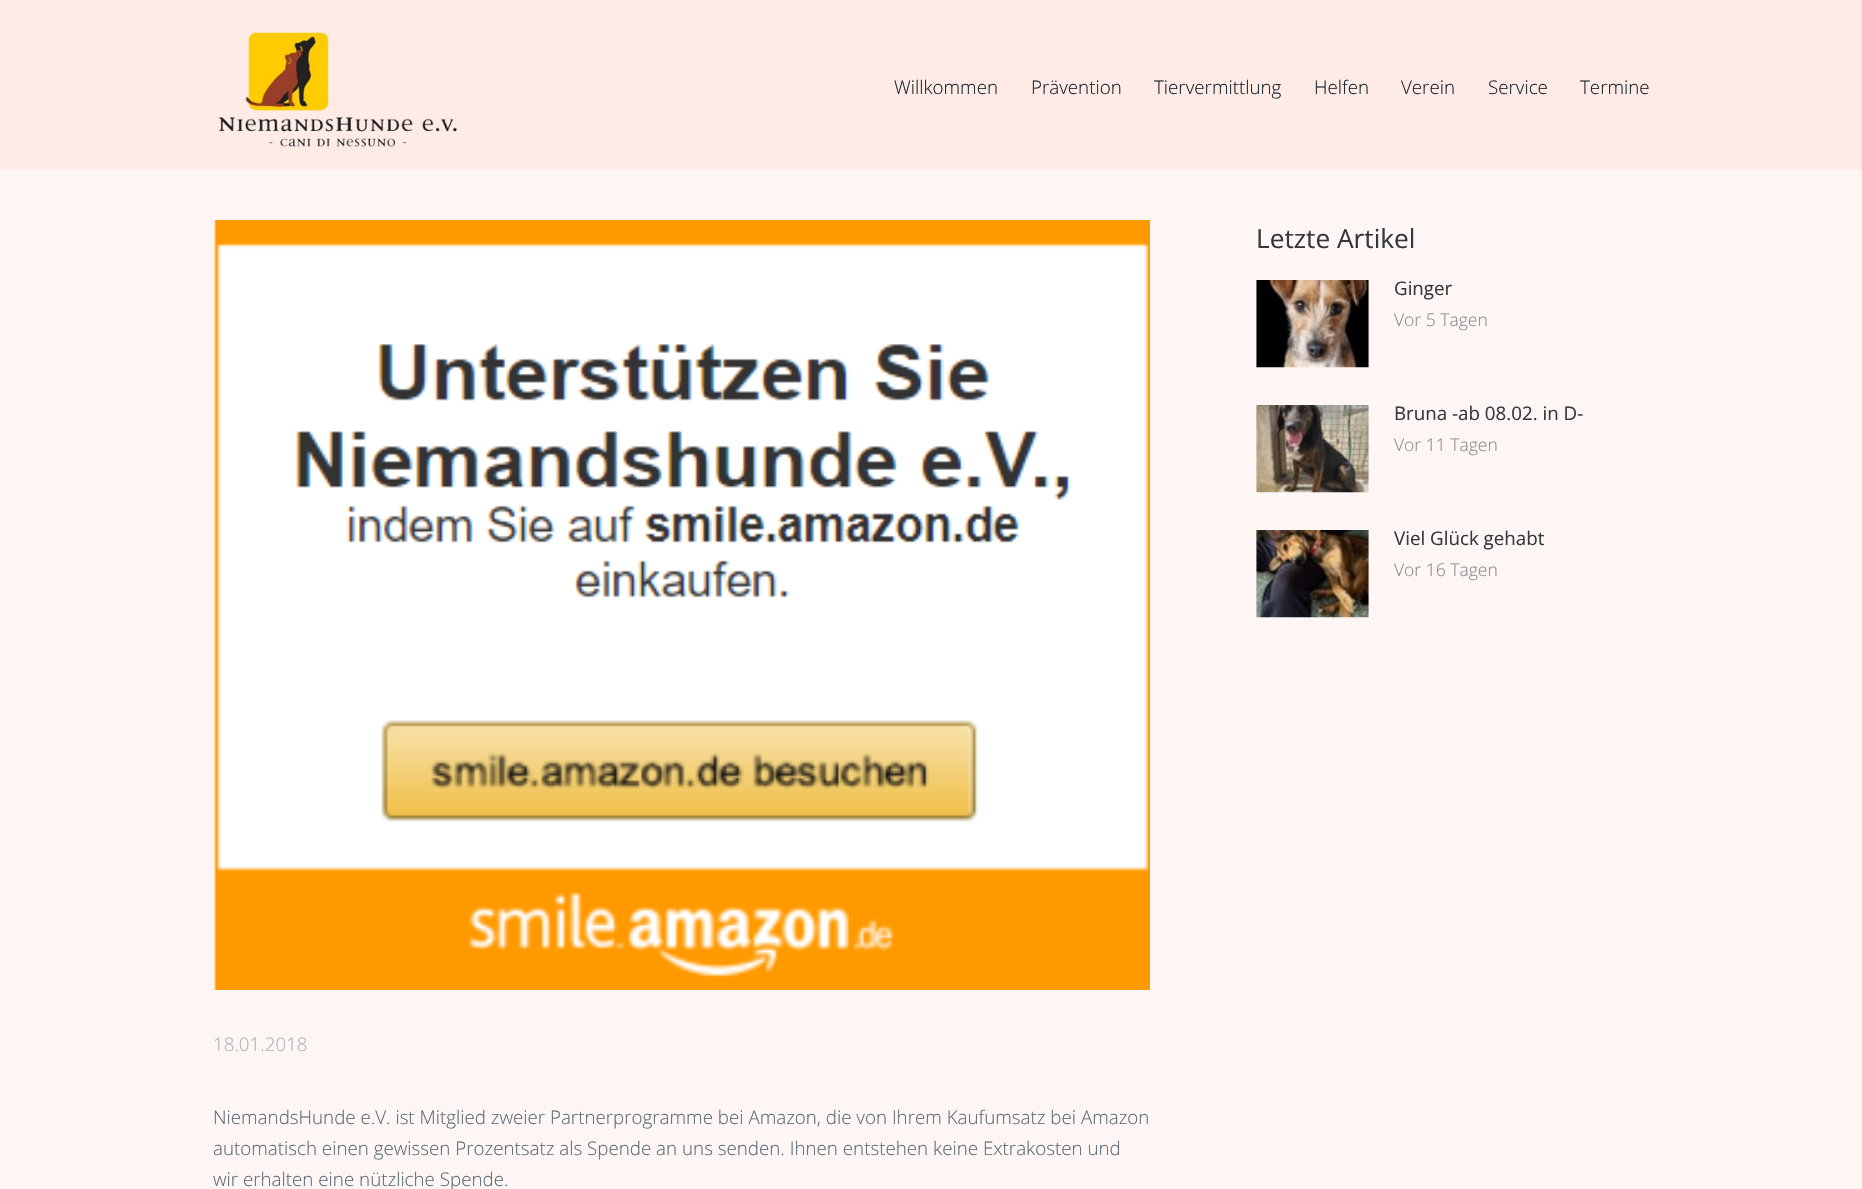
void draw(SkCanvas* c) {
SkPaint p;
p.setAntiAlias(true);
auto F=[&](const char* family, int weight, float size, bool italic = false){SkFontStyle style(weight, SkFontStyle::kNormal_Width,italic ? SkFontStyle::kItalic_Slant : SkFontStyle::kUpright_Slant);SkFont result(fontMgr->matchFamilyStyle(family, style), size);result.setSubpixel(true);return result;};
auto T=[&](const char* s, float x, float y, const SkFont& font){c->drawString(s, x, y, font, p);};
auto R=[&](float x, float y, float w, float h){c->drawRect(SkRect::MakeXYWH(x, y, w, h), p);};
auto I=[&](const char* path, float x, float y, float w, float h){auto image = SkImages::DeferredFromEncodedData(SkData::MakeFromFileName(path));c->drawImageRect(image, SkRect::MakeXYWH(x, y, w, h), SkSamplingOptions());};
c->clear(0xfffdf6f4);
p.setColor(0xffffebe6);
R(0,0,1862,170);
I("1.png",218,32,239,115);
auto f1 = F("Open Sans",300,18.75);
p.setColor(0xff17242e);
T("Willkommen",894,94,f1);
T("Prävention",1031,94,f1);
T("Tiervermittlung",1154,94,f1);
T("Helfen",1314,94,f1);
T("Verein",1401,94,f1);
T("Service",1488,94,f1);
T("Termine",1580,94,f1);
auto f2 = F("Open Sans",400,26.25);
p.setColor(0xff34373c);
T("Letzte Artikel",1256,248,f2);
I("2.png",1256,280,113,88);
auto f3 = F("Open Sans",400,18.75);
T("Ginger",1394,295,f3);
auto f4 = F("Open Sans",300,17.5);
p.setColor(0xff898989);
T("Vor 5 Tagen",1394,326,f4);
I("3.png",1256,405,113,88);
p.setColor(0xff34373c);
T("Bruna -ab 08.02. in D-",1394,420,f3);
p.setColor(0xff898989);
T("Vor 11 Tagen",1394,451,f4);
I("4.png",1256,530,113,88);
p.setColor(0xff34373c);
T("Viel Glück gehabt",1394,545,f3);
p.setColor(0xff898989);
T("Vor 16 Tagen",1394,576,f4);
I("5.png",214,220,936,770);
p.setColor(0xffaeb1b3);
T("18.01.2018",213,1051,f1);
p.setColor(0xff5b6a76);
T("NiemandsHunde e.V. ist Mitglied zweier Partnerprogramme bei Amazon, die von Ihrem Kaufumsatz bei Amazon",213,1124,f1);
T("automatisch einen gewissen Prozentsatz als Spende an uns senden. Ihnen entstehen keine Extrakosten und",213,1155,f1);
T("wir erhalten eine nützliche Spende.",213,1186,f1);
}
